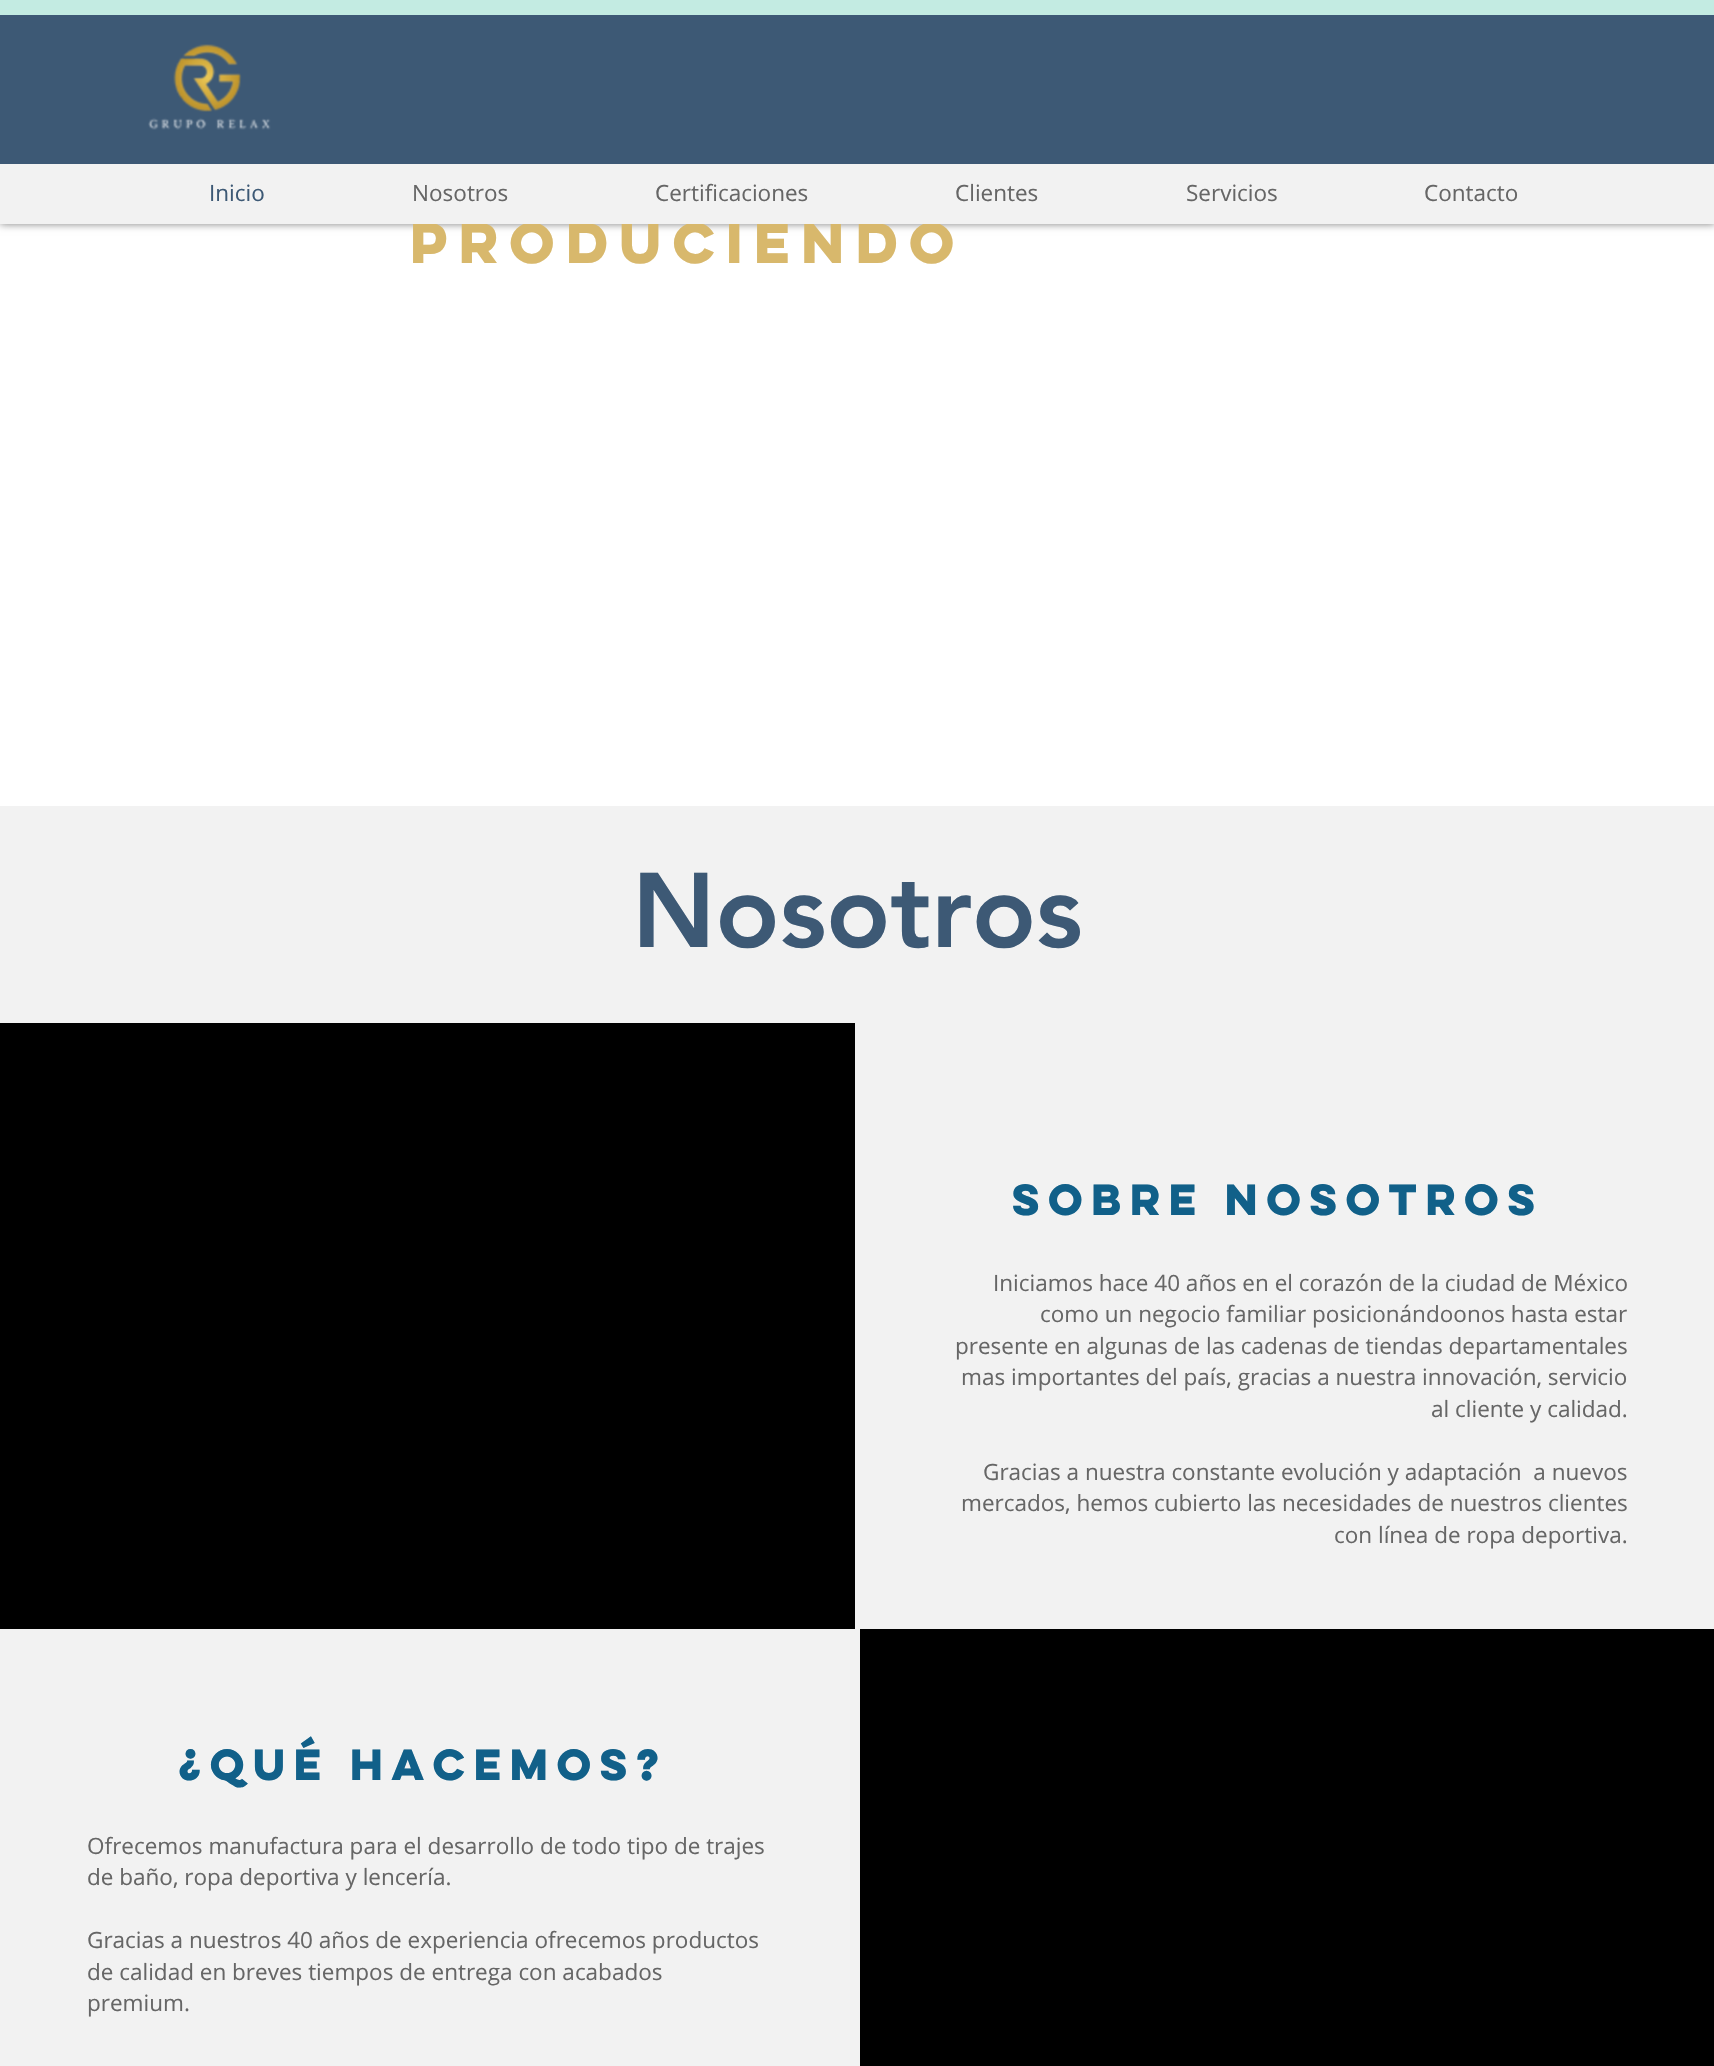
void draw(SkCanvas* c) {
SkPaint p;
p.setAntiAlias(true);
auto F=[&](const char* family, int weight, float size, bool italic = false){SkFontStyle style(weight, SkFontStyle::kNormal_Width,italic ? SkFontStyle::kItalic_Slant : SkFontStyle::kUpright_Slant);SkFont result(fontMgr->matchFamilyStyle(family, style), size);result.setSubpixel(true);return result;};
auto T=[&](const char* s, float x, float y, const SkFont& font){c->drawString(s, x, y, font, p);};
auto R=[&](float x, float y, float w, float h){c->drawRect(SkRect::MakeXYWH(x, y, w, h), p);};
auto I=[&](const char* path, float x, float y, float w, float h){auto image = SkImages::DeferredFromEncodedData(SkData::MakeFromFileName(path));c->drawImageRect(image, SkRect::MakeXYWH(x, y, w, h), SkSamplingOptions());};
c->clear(0xffffffff);
p.setColor(0x80000000);
p.setMaskFilter(SkMaskFilter::MakeBlur(kNormal_SkBlurStyle, 4));
c->drawRect(SkRect::MakeXYWH(0,0,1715,224),p);
p.setMaskFilter(nullptr);
p.setColor(0xff3d5975);
R(0,15,1714,149);
p.setColor(0xffc3ebe2);
R(0,0,1714,15);
I("1.png",148,44,123,86);
auto f1 = F("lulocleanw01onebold",700,51);
p.setColor(0xffd8b86c);
T("produciendo",410,263,f1);
p.setColor(0xfff2f2f2);
R(0,164,1714,60);
auto f2 = F("Open Sans",400,22.5);
p.setColor(0xff3d5975);
T("Inicio",209,201,f2);
p.setColor(0xff666666);
T("Nosotros",412,201,f2);
T("Certificaciones",655,201,f2);
T("Clientes",955,201,f2);
T("Servicios",1186,201,f2);
T("Contacto",1424,201,f2);
p.setColor(0xfff2f2f2);
R(0,806,1714,217);
auto f3 = F("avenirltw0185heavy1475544",900,105);
p.setColor(0xff3d5975);
T("Nosotros",632,947,f3);
p.setColor(0xff000000);
R(0,1023,855,606);
p.setColor(0xfff2f2f2);
R(855,1023,859,606);
auto f4 = F("lulocleanw01onebold",700,39);
p.setColor(0xff116089);
T("Sobre nosotros",1012,1215,f4);
p.setColor(0xff666666);
T("Iniciamos hace 40 años en el corazón de la ciudad de México",993,1291,f2);
T("como un negocio familiar posicionándoonos hasta estar",1040,1322,f2);
T("presente en algunas de las cadenas de tiendas departamentales",955,1354,f2);
T("mas importantes del país, gracias a nuestra innovación, servicio",961,1385,f2);
T("al cliente y calidad.",1431,1417,f2);
T("Gracias a nuestra constante evolución y adaptación  a nuevos",983,1480,f2);
T("mercados, hemos cubierto las necesidades de nuestros clientes",961,1511,f2);
T("con línea de ropa deportiva.",1334,1543,f2);
p.setColor(0xfff2f2f2);
R(0,1629,860,437);
p.setColor(0xff116089);
T("¿Qué Hacemos?",178,1780,f4);
p.setColor(0xff666666);
T("Ofrecemos manufactura para el desarrollo de todo tipo de trajes",87,1854,f2);
T("de baño, ropa deportiva y lencería.",87,1885,f2);
T("Gracias a nuestros 40 años de experiencia ofrecemos productos",87,1948,f2);
T("de calidad en breves tiempos de entrega con acabados",87,1980,f2);
T("premium.",87,2011,f2);
p.setColor(0xff000000);
R(860,1629,854,437);
}
